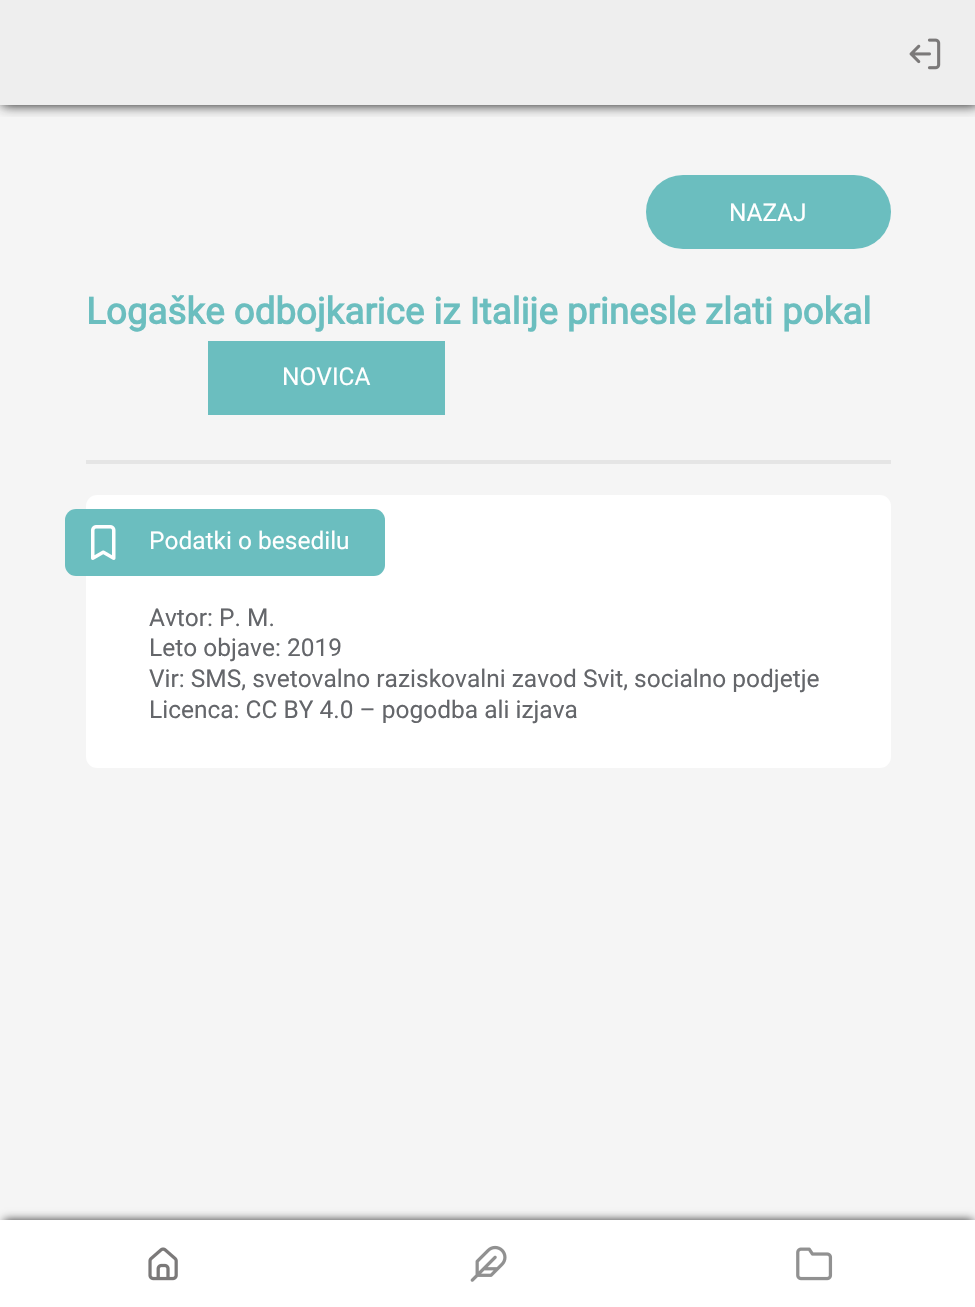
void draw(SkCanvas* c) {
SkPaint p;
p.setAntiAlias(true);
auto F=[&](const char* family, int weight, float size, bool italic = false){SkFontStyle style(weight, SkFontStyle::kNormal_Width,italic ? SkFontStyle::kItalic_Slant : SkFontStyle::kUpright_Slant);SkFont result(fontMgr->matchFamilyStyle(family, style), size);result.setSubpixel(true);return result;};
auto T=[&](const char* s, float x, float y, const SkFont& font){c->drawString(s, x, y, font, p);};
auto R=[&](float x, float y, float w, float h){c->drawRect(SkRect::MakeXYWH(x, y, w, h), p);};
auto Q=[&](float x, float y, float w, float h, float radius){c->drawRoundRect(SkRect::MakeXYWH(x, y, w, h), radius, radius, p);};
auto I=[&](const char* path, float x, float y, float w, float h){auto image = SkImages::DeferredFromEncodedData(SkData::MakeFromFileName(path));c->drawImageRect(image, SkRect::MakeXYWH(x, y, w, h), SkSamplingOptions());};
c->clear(0xffeeeeee);
p.setColor(0xfff5f5f5);
R(0,105,975,1115);
c->save();
c->clipRect(SkRect::MakeXYWH(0,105,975,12));
p.setColor(0xed000000);
p.setMaskFilter(SkMaskFilter::MakeBlur(kNormal_SkBlurStyle, 6));
c->drawRect(SkRect::MakeXYWH(2,0,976,105),p);
p.setMaskFilter(nullptr);
c->restore();
I("1.png",909,38,32,32);
p.setColor(0xff6bbebf);
Q(646,175,245,74,37);
auto f1 = F("Roboto",400,24.5);
p.setColor(0xffffffff);
T("NAZAJ",729,221,f1);
auto f2 = F("Roboto",700,36.75);
p.setColor(0xff6bbebf);
T("Logaške odbojkarice iz Italije prinesle zlati pokal",86,324,f2);
R(208,341,237,74);
p.setColor(0xffffffff);
T("NOVICA",282,385,f1);
p.setColor(0xffe5e5e5);
R(86,460,805,4);
p.setColor(0xffffffff);
Q(86,495,805,273,11);
p.setColor(0xff6bbebf);
Q(65,509,320,67,11);
I("2.png",91,525,25,35);
p.setColor(0xffffffff);
T("Podatki o besedilu",149,549,f1);
p.setColor(0xff64666a);
T("Avtor: P. M.",149,626,f1);
T("Leto objave: 2019",149,656,f1);
T("Vir: SMS, svetovalno raziskovalni zavod Svit, socialno podjetje",149,687,f1);
T("Licenca: CC BY 4.0 – pogodba ali izjava",149,718,f1);
p.setColor(0xff333333);
p.setMaskFilter(SkMaskFilter::MakeBlur(kNormal_SkBlurStyle, 4.5));
c->drawRect(SkRect::MakeXYWH(4,1220,969,80),p);
p.setMaskFilter(nullptr);
p.setColor(0xffffffff);
R(0,1220,975,87);
I("3.png",148,1247,30,34);
I("4.png",470,1245,37,37);
I("5.png",796,1247,37,34);
}
